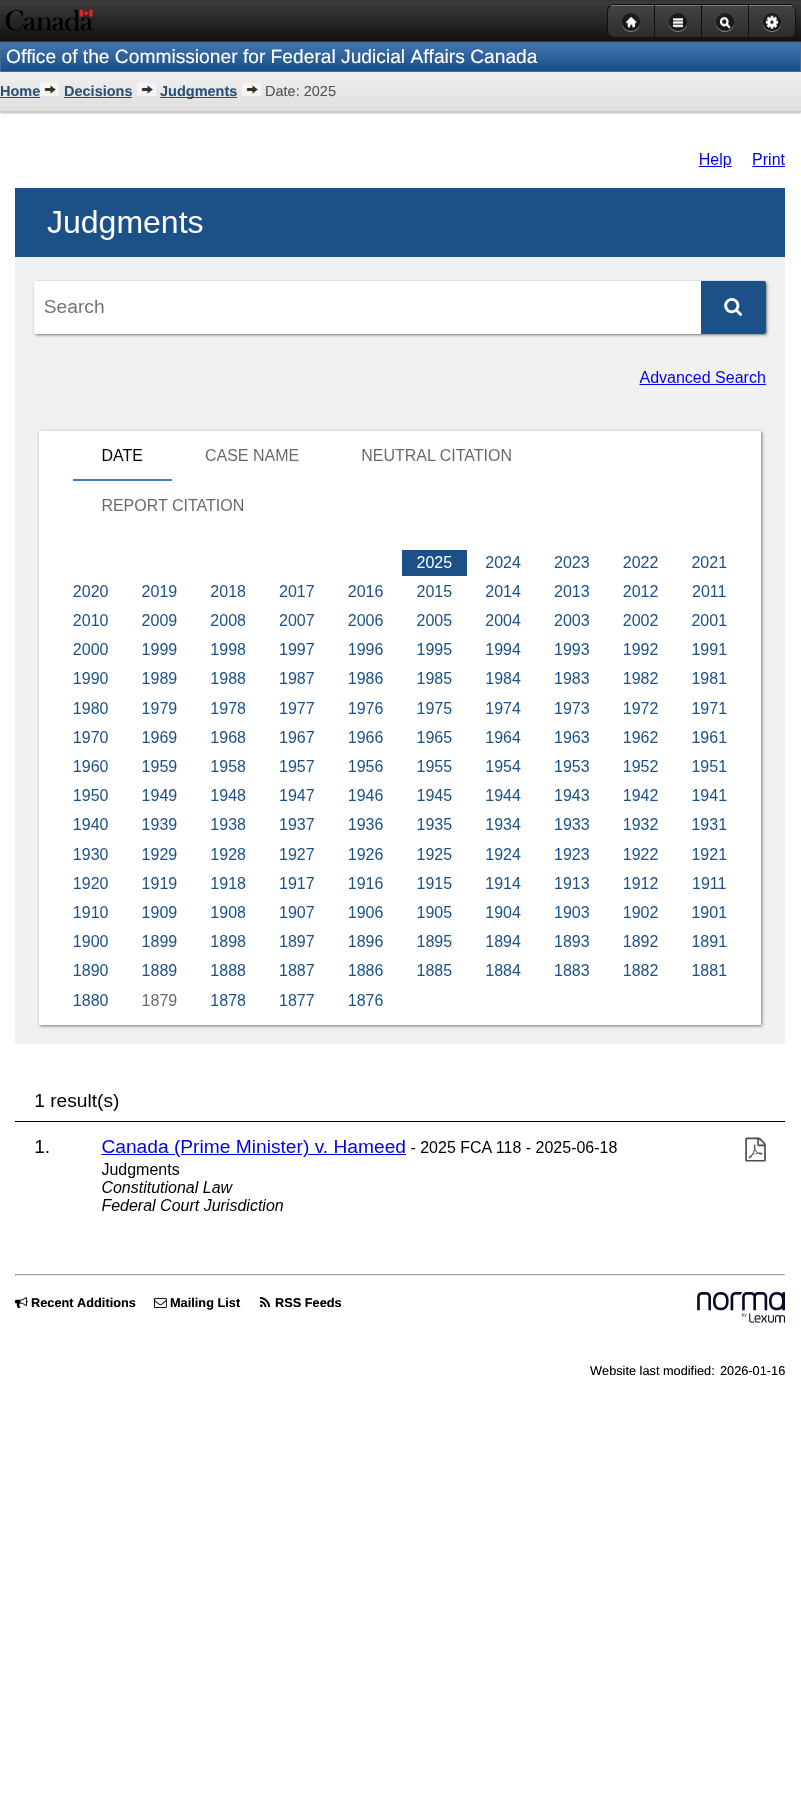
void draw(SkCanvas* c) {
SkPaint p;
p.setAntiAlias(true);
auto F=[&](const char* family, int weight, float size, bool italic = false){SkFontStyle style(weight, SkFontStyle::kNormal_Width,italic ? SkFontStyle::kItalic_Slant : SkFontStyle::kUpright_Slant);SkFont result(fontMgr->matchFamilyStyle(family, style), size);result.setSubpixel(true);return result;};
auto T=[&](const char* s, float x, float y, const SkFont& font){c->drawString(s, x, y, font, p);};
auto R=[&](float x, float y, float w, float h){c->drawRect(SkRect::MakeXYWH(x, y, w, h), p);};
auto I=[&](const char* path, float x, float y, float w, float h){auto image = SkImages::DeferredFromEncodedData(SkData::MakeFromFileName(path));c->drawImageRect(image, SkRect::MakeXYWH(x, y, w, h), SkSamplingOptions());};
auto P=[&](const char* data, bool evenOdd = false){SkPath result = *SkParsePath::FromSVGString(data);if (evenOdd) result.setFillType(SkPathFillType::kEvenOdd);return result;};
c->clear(0xffffffff);
{
const SkColor colors[] = {0xff3c3c3c,0xff111111};
const float stops[] = {0,1};
const SkPoint ends[] = {{401,1}, {401,41}};
p.setShader(SkGradientShader::MakeLinear(ends, colors, stops, 2, SkTileMode::kClamp));
p.setAlpha(255);
}
R(0,1,801,40);
p.setShader(nullptr);
p.setColor(0xff333333);
R(0,0,801,1);
R(0,41,801,1);
I("1.png",5,10,89,21);
{
const SkColor colors[] = {0xff444444,0xff2d2d2d};
const float stops[] = {0,1};
const SkPoint ends[] = {{631,5}, {631,37}};
p.setShader(SkGradientShader::MakeLinear(ends, colors, stops, 2, SkTileMode::kClamp));
p.setAlpha(255);
}
c->drawPath(P("M614 5h40v32h-40c-3.5 0-6-2.5-6-6v-20c0-3.5 2.5-6 6-6z"),p);
p.setShader(nullptr);
p.setColor(0xff111111);
c->drawPath(P("M614 4h40v34h-40c-4 0-7-3-7-7v-20c0-4 3-7 7-7zm0 1h40v32h-40c-3 0-6-3-6-6v-20c0-3 3-6 6-6z",true),p);
p.setColor(0x4dffffff);
R(611,5,43,1);
p.setColor(0x66ffffff);
c->drawPath(P("M640 22.5c-.5 11-17.5 11-18 0c-.5 12.5 18.5 12.5 18 0z"),p);
p.setColor(0x8c000000);
c->drawCircle(631,22,9,p);
I("2.png",625,16,12,12);
{
const SkColor colors[] = {0xff444444,0xff2d2d2d};
const float stops[] = {0,1};
const SkPoint ends[] = {{678,5}, {678,37}};
p.setShader(SkGradientShader::MakeLinear(ends, colors, stops, 2, SkTileMode::kClamp));
p.setAlpha(255);
}
R(655,6,46,31);
p.setShader(nullptr);
p.setColor(0xff111111);
R(654,4,94,1);
R(654,37,94,1);
R(654,4,1,34);
p.setColor(0xff7c7c7c);
R(655,5,46,1);
p.setColor(0x66ffffff);
c->drawPath(P("M687 22.5c-.5 11-17.5 11-18 0c-.5 12.5 18.5 12.5 18 0z"),p);
p.setColor(0x8c000000);
c->drawCircle(678,22,9,p);
I("3.png",673,18,10,10);
{
const SkColor colors[] = {0xff444444,0xff2d2d2d};
const float stops[] = {0,1};
const SkPoint ends[] = {{725,5}, {725,37}};
p.setShader(SkGradientShader::MakeLinear(ends, colors, stops, 2, SkTileMode::kClamp));
p.setAlpha(255);
}
R(702,6,46,31);
p.setShader(nullptr);
p.setColor(0xff111111);
R(701,4,1,34);
p.setColor(0xff7c7c7c);
R(702,5,46,1);
p.setColor(0x66ffffff);
c->drawPath(P("M734 22.5c-.5 11-17.5 11-18 0c-.5 12.5 18.5 12.5 18 0z"),p);
p.setColor(0x8c000000);
c->drawCircle(725,22,9,p);
I("4.png",719,16,12,13);
{
const SkColor colors[] = {0xff444444,0xff2d2d2d};
const float stops[] = {0,1};
const SkPoint ends[] = {{772,5}, {772,37}};
p.setShader(SkGradientShader::MakeLinear(ends, colors, stops, 2, SkTileMode::kClamp));
p.setAlpha(255);
}
c->drawPath(P("M749 5h40c3.5 0 6 2.5 6 6v20c0 3.5-2.5 6-6 6h-40z"),p);
p.setStroke(true);
p.setStrokeWidth(1);
p.setShader(nullptr);
p.setColor(0xff111111);
c->drawPath(P("M748.5 4.5h40.5c3.5 0 6.5 3 6.5 6.5v20c0 3.5-3 6.5-6.5 6.5h-40.5z"),p);
p.setStroke(false);
p.setColor(0x4dffffff);
R(749,5,43,1);
p.setColor(0x66ffffff);
c->drawPath(P("M781 22.5c-.5 11-17.5 11-18 0c-.5 12.5 18.5 12.5 18 0z"),p);
p.setColor(0x8c000000);
c->drawCircle(772,22,9,p);
I("5.png",765,15,14,14);
{
const SkColor colors[] = {0xff4474ad,0xff174f88};
const float stops[] = {0,1};
const SkPoint ends[] = {{401,43}, {401,71}};
p.setShader(SkGradientShader::MakeLinear(ends, colors, stops, 2, SkTileMode::kClamp));
p.setAlpha(255);
}
R(1,43,799,28);
p.setStroke(true);
p.setShader(nullptr);
p.setColor(0xff456f9a);
c->drawRect(SkRect::MakeXYWH(.5,42.5,800,29),p);
auto f1 = F("Liberation Sans",400,19.2);
p.setStroke(false);
p.setColor(0xffffffff);
T("Office of the Commissioner for Federal Judicial Affairs Canada",6,63,f1);
p.setColor(0x4d000000);
p.setMaskFilter(SkMaskFilter::MakeBlur(kNormal_SkBlurStyle, 1));
c->drawRect(SkRect::MakeXYWH(0,73,801,40),p);
p.setMaskFilter(nullptr);
{
const SkColor colors[] = {0xfff0efef,0xffdfdfdd};
const float stops[] = {0,1};
const SkPoint ends[] = {{401,72}, {401,111}};
p.setShader(SkGradientShader::MakeLinear(ends, colors, stops, 2, SkTileMode::kClamp));
p.setAlpha(255);
}
R(0,72,801,39);
p.setShader(nullptr);
p.setColor(0xffcccccc);
R(0,111,801,1);
auto f2 = F("Liberation Sans",700,14.5);
p.setColor(0xff295376);
T("Home",0,96,f2);
R(0,97,40,1);
I("6.png",40,83,19,13);
T("Decisions",64,96,f2);
R(64,97,68,1);
I("6.png",137,83,19,13);
R(160,97,77,1);
T("Judgments",160,96,f2);
I("6.png",242,83,19,13);
auto f3 = F("Liberation Sans",400,14.5);
p.setColor(0xff555555);
T("Date: 2025",265,96,f3);
I("7.png",15,153,770,1123);
I("8.png",15,1297,13,11);
auto f4 = F("Liberation Sans",700,12.75);
p.setColor(0xff000000);
T("Recent Additions",31,1307,f4);
I("9.png",154,1297,13,11);
T("Mailing List",170,1307,f4);
I("10.png",260,1297,10,11);
T("RSS Feeds",275,1307,f4);
I("11.png",697,1292,88,31);
auto f5 = F("Liberation Sans",400,12.75);
T("Website last modified:",590,1375,f5);
T("2026-01-16",720,1375,f5);
}
